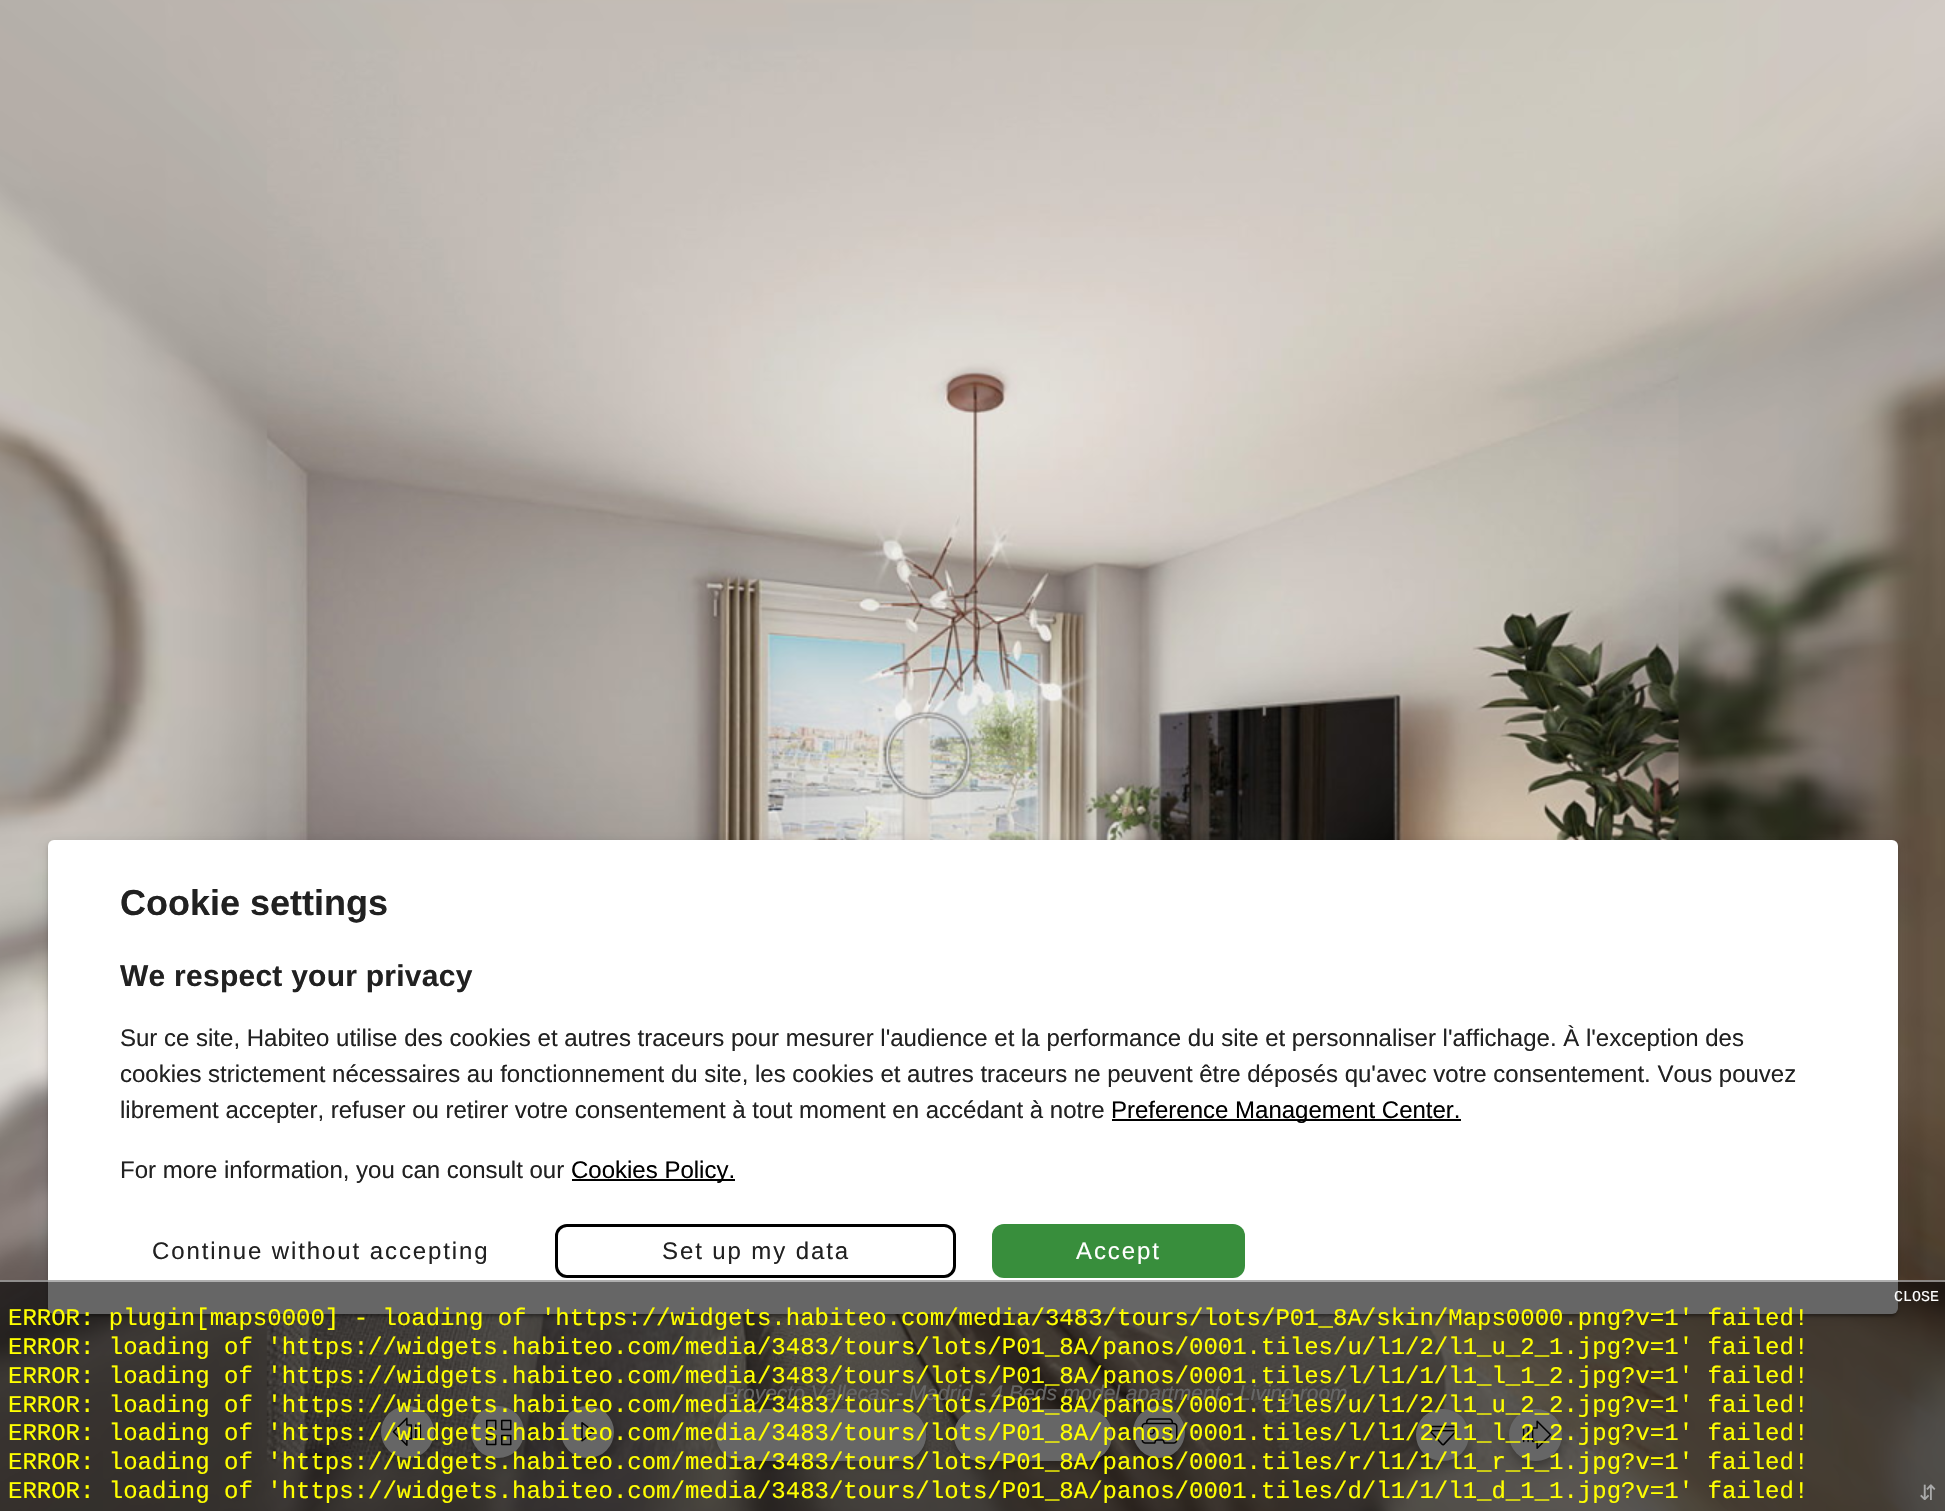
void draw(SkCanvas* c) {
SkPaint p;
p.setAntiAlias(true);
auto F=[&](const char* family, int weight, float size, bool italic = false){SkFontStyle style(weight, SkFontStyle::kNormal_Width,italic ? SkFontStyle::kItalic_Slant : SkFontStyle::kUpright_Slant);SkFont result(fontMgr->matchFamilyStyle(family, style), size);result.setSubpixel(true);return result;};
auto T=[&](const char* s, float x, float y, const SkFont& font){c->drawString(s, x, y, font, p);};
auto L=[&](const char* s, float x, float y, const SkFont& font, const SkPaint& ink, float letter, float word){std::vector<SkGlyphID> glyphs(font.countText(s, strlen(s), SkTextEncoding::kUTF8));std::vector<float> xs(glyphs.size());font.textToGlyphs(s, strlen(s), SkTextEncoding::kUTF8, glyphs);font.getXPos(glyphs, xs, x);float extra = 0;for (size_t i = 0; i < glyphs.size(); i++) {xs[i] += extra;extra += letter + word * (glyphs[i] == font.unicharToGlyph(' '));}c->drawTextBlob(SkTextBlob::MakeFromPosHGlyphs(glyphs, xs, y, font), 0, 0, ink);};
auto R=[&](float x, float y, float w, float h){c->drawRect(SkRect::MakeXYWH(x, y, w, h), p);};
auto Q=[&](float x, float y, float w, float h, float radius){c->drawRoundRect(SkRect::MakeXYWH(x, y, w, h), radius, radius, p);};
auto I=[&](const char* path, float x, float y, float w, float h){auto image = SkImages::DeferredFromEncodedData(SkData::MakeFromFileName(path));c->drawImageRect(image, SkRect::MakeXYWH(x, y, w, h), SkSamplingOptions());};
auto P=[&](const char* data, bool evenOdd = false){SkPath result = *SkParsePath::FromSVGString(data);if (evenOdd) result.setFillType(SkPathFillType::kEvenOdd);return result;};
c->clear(0xffffffff);
I("1.png",0,0,1945,1511);
p.setColor(0x1f000000);
p.setMaskFilter(SkMaskFilter::MakeBlur(kNormal_SkBlurStyle, 4));
c->drawRoundRect(SkRect::MakeXYWH(48,842,1850,474),6,6,p);
p.setMaskFilter(nullptr);
p.setColor(0x24000000);
p.setMaskFilter(SkMaskFilter::MakeBlur(kNormal_SkBlurStyle, 1.5));
c->drawRoundRect(SkRect::MakeXYWH(48,843,1850,474),6,6,p);
p.setMaskFilter(nullptr);
p.setColor(0x33000000);
p.setMaskFilter(SkMaskFilter::MakeBlur(kNormal_SkBlurStyle, 1));
c->drawRoundRect(SkRect::MakeXYWH(51,848,1844,468),3,3,p);
p.setMaskFilter(nullptr);
p.setColor(0xffffffff);
Q(48,840,1850,474,6);
auto f1 = F("Liberation Sans",700,36);
p.setColor(0xff212121);
T("Cookie settings",120,915,f1);
auto f2 = F("Liberation Sans",700,30);
L("We respect your privacy",120,986,f2,p,.25,0);
auto f3 = F("Liberation Sans",400,24);
T("Sur ce site, Habiteo utilise des cookies et autres traceurs pour mesurer l'audience et la performance du site et personnaliser l'affichage. À l'exception des",120,1046,f3);
T("cookies strictement nécessaires au fonctionnement du site, les cookies et autres traceurs ne peuvent être déposés qu'avec votre consentement. Vous pouvez",120,1082,f3);
T("librement accepter, refuser ou retirer votre consentement à tout moment en accédant à notre",120,1118,f3);
p.setColor(0xff000000);
R(1112,1119,349,2);
T("Preference Management Center.",1111,1118,f3);
p.setColor(0xff212121);
T("For more information, you can consult our",120,1178,f3);
p.setColor(0xff000000);
R(572,1179,163,2);
T("Cookies Policy.",571,1178,f3);
p.setColor(0xff212121);
L("Continue without accepting",152,1259,f3,p,1.9,0);
p.setStroke(true);
p.setStrokeWidth(3);
p.setColor(0xff000000);
c->drawRoundRect(SkRect::MakeXYWH(556.5,1225.5,398,51),10.5,10.5,p);
p.setStroke(false);
p.setColor(0xffffffff);
Q(558,1227,395,48,12);
p.setColor(0xff212121);
L("Set up my data",662,1259,f3,p,1.9,0);
p.setColor(0xff388e3c);
Q(992,1224,253,54,12);
p.setColor(0xffffffff);
L("Accept",1076,1259,f3,p,1.9,0);
p.setColor(0x1f000000);
p.setMaskFilter(SkMaskFilter::MakeBlur(kNormal_SkBlurStyle, 13.5));
c->drawRoundRect(SkRect::MakeXYWH(381,1407,53,53),26.5,26.5,p);
p.setMaskFilter(nullptr);
p.setColor(0x24000000);
p.setMaskFilter(SkMaskFilter::MakeBlur(kNormal_SkBlurStyle, 7.5));
c->drawRoundRect(SkRect::MakeXYWH(381,1415,53,52),26,26,p);
p.setMaskFilter(nullptr);
p.setColor(0x33000000);
p.setMaskFilter(SkMaskFilter::MakeBlur(kNormal_SkBlurStyle, 4));
c->drawRoundRect(SkRect::MakeXYWH(383,1412,49,49),24.5,24.5,p);
p.setMaskFilter(nullptr);
p.setColor(0xffffffff);
Q(381,1406,53,52,26);
I("2.png",392,1417,30,29);
p.setColor(0x1f000000);
p.setMaskFilter(SkMaskFilter::MakeBlur(kNormal_SkBlurStyle, 13.5));
c->drawRoundRect(SkRect::MakeXYWH(471,1407,53,53),26.5,26.5,p);
p.setMaskFilter(nullptr);
p.setColor(0x24000000);
p.setMaskFilter(SkMaskFilter::MakeBlur(kNormal_SkBlurStyle, 7.5));
c->drawRoundRect(SkRect::MakeXYWH(471,1415,53,52),26,26,p);
p.setMaskFilter(nullptr);
p.setColor(0x33000000);
p.setMaskFilter(SkMaskFilter::MakeBlur(kNormal_SkBlurStyle, 4));
c->drawRoundRect(SkRect::MakeXYWH(473,1412,49,49),24.5,24.5,p);
p.setMaskFilter(nullptr);
p.setColor(0xffffffff);
Q(471,1406,53,52,26);
I("3.png",486,1419,26,27);
p.setColor(0x1f000000);
p.setMaskFilter(SkMaskFilter::MakeBlur(kNormal_SkBlurStyle, 13.5));
c->drawRoundRect(SkRect::MakeXYWH(561,1407,53,53),26.5,26.5,p);
p.setMaskFilter(nullptr);
p.setColor(0x24000000);
p.setMaskFilter(SkMaskFilter::MakeBlur(kNormal_SkBlurStyle, 7.5));
c->drawRoundRect(SkRect::MakeXYWH(561,1415,53,52),26,26,p);
p.setMaskFilter(nullptr);
p.setColor(0x33000000);
p.setMaskFilter(SkMaskFilter::MakeBlur(kNormal_SkBlurStyle, 4));
c->drawRoundRect(SkRect::MakeXYWH(563,1412,49,49),24.5,24.5,p);
p.setMaskFilter(nullptr);
p.setColor(0xffffffff);
Q(561,1406,53,52,26);
I("4.png",581,1422,14,20);
p.setColor(0x40000000);
p.setMaskFilter(SkMaskFilter::MakeBlur(kNormal_SkBlurStyle, 3));
c->drawRoundRect(SkRect::MakeXYWH(716,1415,210,52),26,26,p);
p.setMaskFilter(nullptr);
p.setColor(0xffffffff);
Q(716,1409,210,52,26);
p.setColor(0xccffffff);
c->drawPath(P("M742 1409h26v52h-26c-14.5 0-26-11.5-26-26c0-14.5 11.5-26 26-26z"),p);
c->drawPath(P("M873 1409h27c14.5 0 26 11.5 26 26c0 14.5-11.5 26-26 26h-27z"),p);
p.setColor(0x40000000);
p.setMaskFilter(SkMaskFilter::MakeBlur(kNormal_SkBlurStyle, 3));
c->drawRoundRect(SkRect::MakeXYWH(954,1415,158,52),26,26,p);
p.setMaskFilter(nullptr);
p.setColor(0xffffffff);
Q(954,1409,158,52,26);
p.setColor(0xccffffff);
c->drawPath(P("M980 1409h27v52h-27c-14.5 0-26-11.5-26-26c0-14.5 11.5-26 26-26z"),p);
c->drawPath(P("M1059 1409h27c14.5 0 26 11.5 26 26c0 14.5-11.5 26-26 26h-27z"),p);
p.setColor(0x1f000000);
p.setMaskFilter(SkMaskFilter::MakeBlur(kNormal_SkBlurStyle, 13.5));
c->drawRoundRect(SkRect::MakeXYWH(1133,1407,52,53),26,26,p);
p.setMaskFilter(nullptr);
p.setColor(0x24000000);
p.setMaskFilter(SkMaskFilter::MakeBlur(kNormal_SkBlurStyle, 7.5));
c->drawRoundRect(SkRect::MakeXYWH(1133,1415,52,52),26,26,p);
p.setMaskFilter(nullptr);
p.setColor(0x33000000);
p.setMaskFilter(SkMaskFilter::MakeBlur(kNormal_SkBlurStyle, 4));
c->drawRoundRect(SkRect::MakeXYWH(1134,1412,50,49),24.5,24.5,p);
p.setMaskFilter(nullptr);
p.setColor(0xffffffff);
c->drawCircle(1159,1432,26,p);
I("5.png",1141,1418,37,26);
p.setColor(0x1f000000);
p.setMaskFilter(SkMaskFilter::MakeBlur(kNormal_SkBlurStyle, 13.5));
c->drawRoundRect(SkRect::MakeXYWH(1416,1410,53,53),26.5,26.5,p);
p.setMaskFilter(nullptr);
p.setColor(0x24000000);
p.setMaskFilter(SkMaskFilter::MakeBlur(kNormal_SkBlurStyle, 7.5));
c->drawRoundRect(SkRect::MakeXYWH(1416,1418,53,52),26,26,p);
p.setMaskFilter(nullptr);
p.setColor(0x33000000);
p.setMaskFilter(SkMaskFilter::MakeBlur(kNormal_SkBlurStyle, 4));
c->drawRoundRect(SkRect::MakeXYWH(1418,1415,49,49),24.5,24.5,p);
p.setMaskFilter(nullptr);
p.setColor(0xffffffff);
Q(1416,1409,53,52,26);
I("6.png",1430,1425,26,21);
p.setColor(0x1f000000);
p.setMaskFilter(SkMaskFilter::MakeBlur(kNormal_SkBlurStyle, 13.5));
c->drawRoundRect(SkRect::MakeXYWH(1509,1410,53,53),26.5,26.5,p);
p.setMaskFilter(nullptr);
p.setColor(0x24000000);
p.setMaskFilter(SkMaskFilter::MakeBlur(kNormal_SkBlurStyle, 7.5));
c->drawRoundRect(SkRect::MakeXYWH(1509,1418,53,52),26,26,p);
p.setMaskFilter(nullptr);
p.setColor(0x33000000);
p.setMaskFilter(SkMaskFilter::MakeBlur(kNormal_SkBlurStyle, 4));
c->drawRoundRect(SkRect::MakeXYWH(1511,1415,49,49),24.5,24.5,p);
p.setMaskFilter(nullptr);
p.setColor(0xffffffff);
Q(1509,1409,53,52,26);
I("7.png",1522,1420,30,29);
auto f4 = F("Liberation Sans",400,21,true);
T("Proyecto Vallecas - Madrid - 4 Beds model apartment - Living room",722,1400,f4);
p.setColor(0x99000000);
R(0,1280,1945,231);
p.setColor(0x7affffff);
R(0,1280,1945,2);
auto f5 = F("Liberation Mono",400,15);
p.setColor(0xffffffff);
T("CLOSE",1894,1301,f5);
auto f6 = F("Liberation Mono",400,24);
p.setColor(0xffffff00);
T("ERROR: plugin[maps0000] - loading of 'https://widgets.habiteo.com/media/3483/tours/lots/P01_8A/skin/Maps0000.png?v=1' failed!",8,1325,f6);
T("ERROR: loading of 'https://widgets.habiteo.com/media/3483/tours/lots/P01_8A/panos/0001.tiles/u/l1/2/l1_u_2_1.jpg?v=1' failed!",8,1354,f6);
T("ERROR: loading of 'https://widgets.habiteo.com/media/3483/tours/lots/P01_8A/panos/0001.tiles/l/l1/1/l1_l_1_2.jpg?v=1' failed!",8,1383,f6);
T("ERROR: loading of 'https://widgets.habiteo.com/media/3483/tours/lots/P01_8A/panos/0001.tiles/u/l1/2/l1_u_2_2.jpg?v=1' failed!",8,1412,f6);
T("ERROR: loading of 'https://widgets.habiteo.com/media/3483/tours/lots/P01_8A/panos/0001.tiles/l/l1/2/l1_l_2_2.jpg?v=1' failed!",8,1440,f6);
T("ERROR: loading of 'https://widgets.habiteo.com/media/3483/tours/lots/P01_8A/panos/0001.tiles/r/l1/1/l1_r_1_1.jpg?v=1' failed!",8,1469,f6);
T("ERROR: loading of 'https://widgets.habiteo.com/media/3483/tours/lots/P01_8A/panos/0001.tiles/d/l1/1/l1_d_1_1.jpg?v=1' failed!",8,1498,f6);
auto f7 = F("DejaVu Sans",400,21);
p.setColor(0xffaaaaaa);
T("⇵",1919,1500,f7);
}
